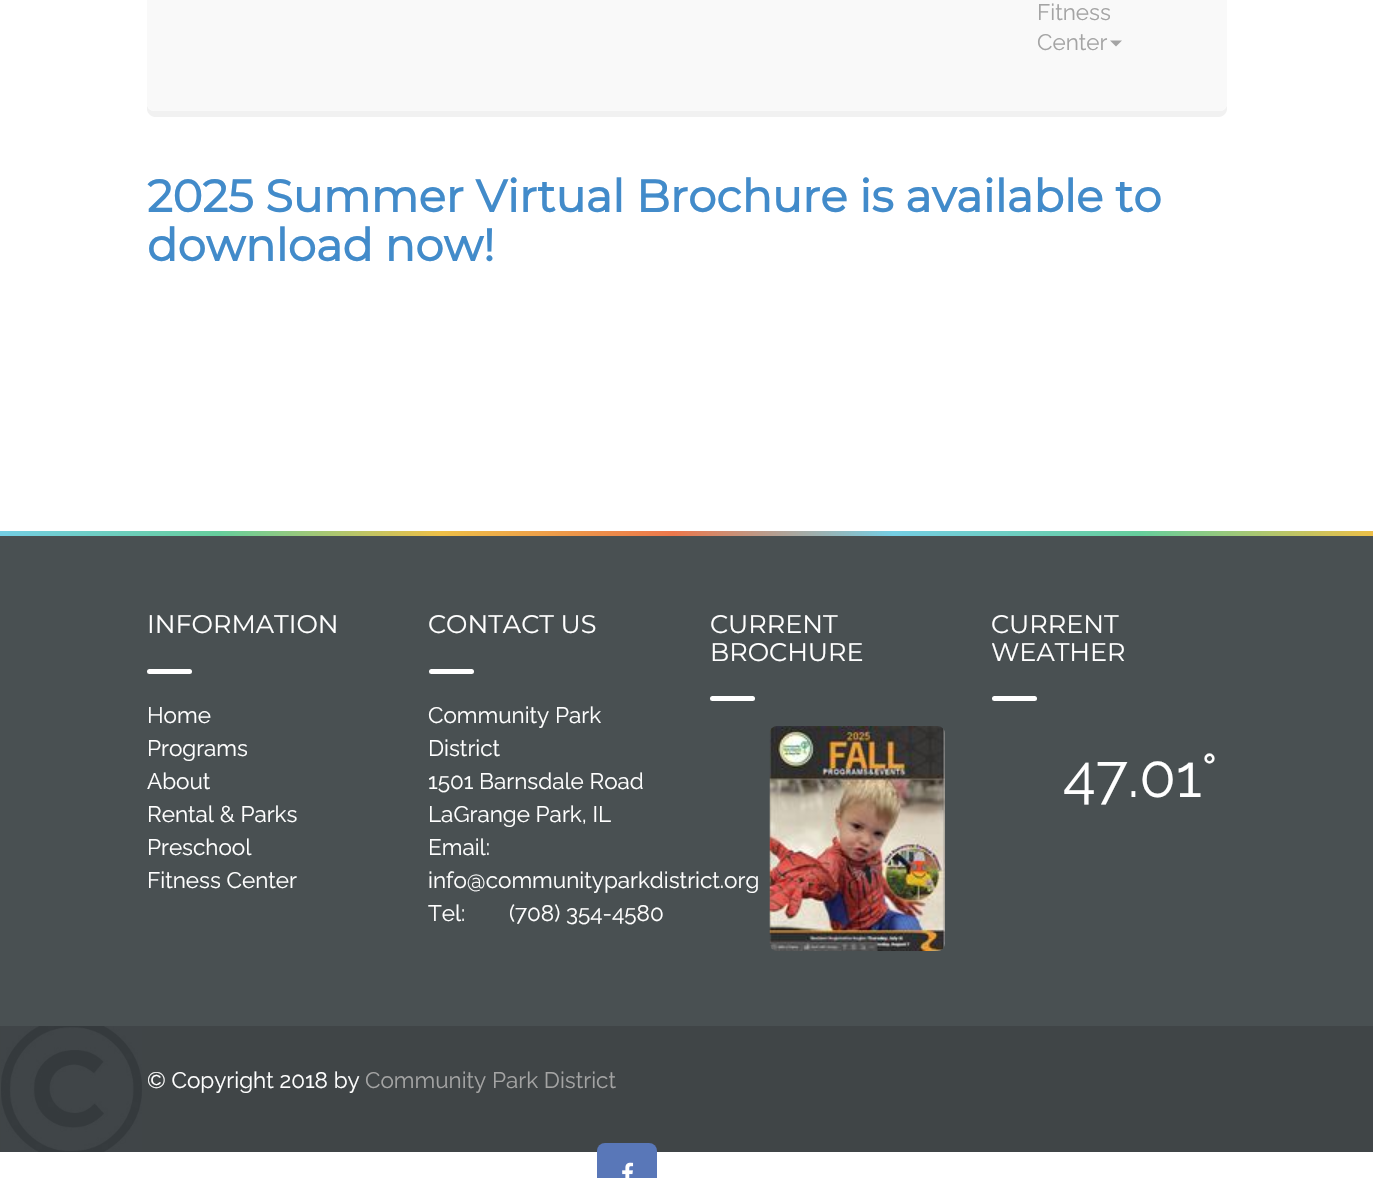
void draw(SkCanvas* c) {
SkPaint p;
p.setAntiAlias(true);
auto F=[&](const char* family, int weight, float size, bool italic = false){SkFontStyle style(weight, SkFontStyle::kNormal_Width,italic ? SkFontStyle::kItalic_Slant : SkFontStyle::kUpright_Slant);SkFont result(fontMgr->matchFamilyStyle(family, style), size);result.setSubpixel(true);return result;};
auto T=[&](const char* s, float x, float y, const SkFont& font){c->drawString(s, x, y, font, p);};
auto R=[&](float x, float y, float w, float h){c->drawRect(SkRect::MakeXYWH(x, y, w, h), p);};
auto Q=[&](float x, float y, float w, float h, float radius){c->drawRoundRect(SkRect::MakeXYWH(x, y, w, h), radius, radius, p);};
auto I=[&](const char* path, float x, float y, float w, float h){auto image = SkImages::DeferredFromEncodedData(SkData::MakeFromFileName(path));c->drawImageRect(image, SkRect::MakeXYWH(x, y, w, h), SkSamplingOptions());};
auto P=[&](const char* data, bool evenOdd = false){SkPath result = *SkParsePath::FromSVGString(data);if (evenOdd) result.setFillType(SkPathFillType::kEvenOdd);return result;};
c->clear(0xffffffff);
p.setColor(0xfff1f1f1);
c->drawPath(P("M147 104v5c0 4 4 8 8 8h1064c4 0 8-4 8-8v-5c0 4-3 7-7 7h-1066c-4 0-7-3-7-7z"),p);
p.setColor(0xfff9f9f9);
c->drawPath(P("M147-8h1080v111c0 4.5-3.5 8-8 8h-1064c-4.5 0-8-3.5-8-8z"),p);
auto f1 = F("Raleway",400,22.5);
p.setColor(0xffa4a4a4);
T("Fitness",1037,20,f1);
T("Center",1037,50,f1);
c->drawPath(P("M1110 40.5h12l-6 6z"),p);
auto f2 = F("Montserrat",700,45);
p.setColor(0xff428bca);
T("2025 Summer Virtual Brochure is available to",147,212,f2);
T("download now!",147,261,f2);
{
const SkColor colors[] = {0xff74cee4,0xff66ce9c,0xffedbf47,0xffec774b,0xff74cee4,0xff66ce9c,0xffedbf47};
const float stops[] = {0,.16,.32,.49,.65,.83,1};
const SkPoint ends[] = {{0,533}, {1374,533}};
p.setShader(SkGradientShader::MakeLinear(ends, colors, stops, 7, SkTileMode::kClamp));
p.setAlpha(255);
}
R(0,531,1373,5);
p.setShader(nullptr);
p.setColor(0xff495052);
R(0,536,1373,490);
auto f3 = F("Montserrat",100,25.5);
p.setColor(0xffffffff);
T("INFORMATION",147,633,f3);
Q(147,669,45,5,2.5);
T("Home",147,723,f1);
T("Programs",147,756,f1);
T("About",147,789,f1);
T("Rental & Parks",147,822,f1);
T("Preschool",147,855,f1);
T("Fitness Center",147,888,f1);
T("CONTACT US",428,633,f3);
Q(429,669,45,5,2.5);
T("Community Park",428,723,f1);
T("District",428,756,f1);
T("1501 Barnsdale Road",428,789,f1);
T("LaGrange Park, IL",428,822,f1);
T("Email:",428,855,f1);
T("info@communityparkdistrict.org",428,888,f1);
T("Tel:",428,921,f1);
T("(708) 354-4580",509,921,f1);
T("CURRENT",710,633,f3);
T("BROCHURE",710,661,f3);
Q(710,696,45,5,2.5);
I("1.png",769,726,176,225);
T("CURRENT",991,633,f3);
T("WEATHER",991,661,f3);
Q(992,696,45,5,2.5);
auto f4 = F("Raleway",400,60);
T("47.01°",1063,797,f4);
p.setColor(0xff404547);
R(0,1026,1373,126);
I("2.png",1,1026,141,126);
p.setColor(0xffffffff);
T("© Copyright 2018 by",147,1088,f1);
p.setColor(0xffa4a4a4);
T("Community Park District",365,1088,f1);
p.setColor(0xff5977b8);
Q(597,1143,60,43,8);
I("3.png",622,1162,12,16);
}
